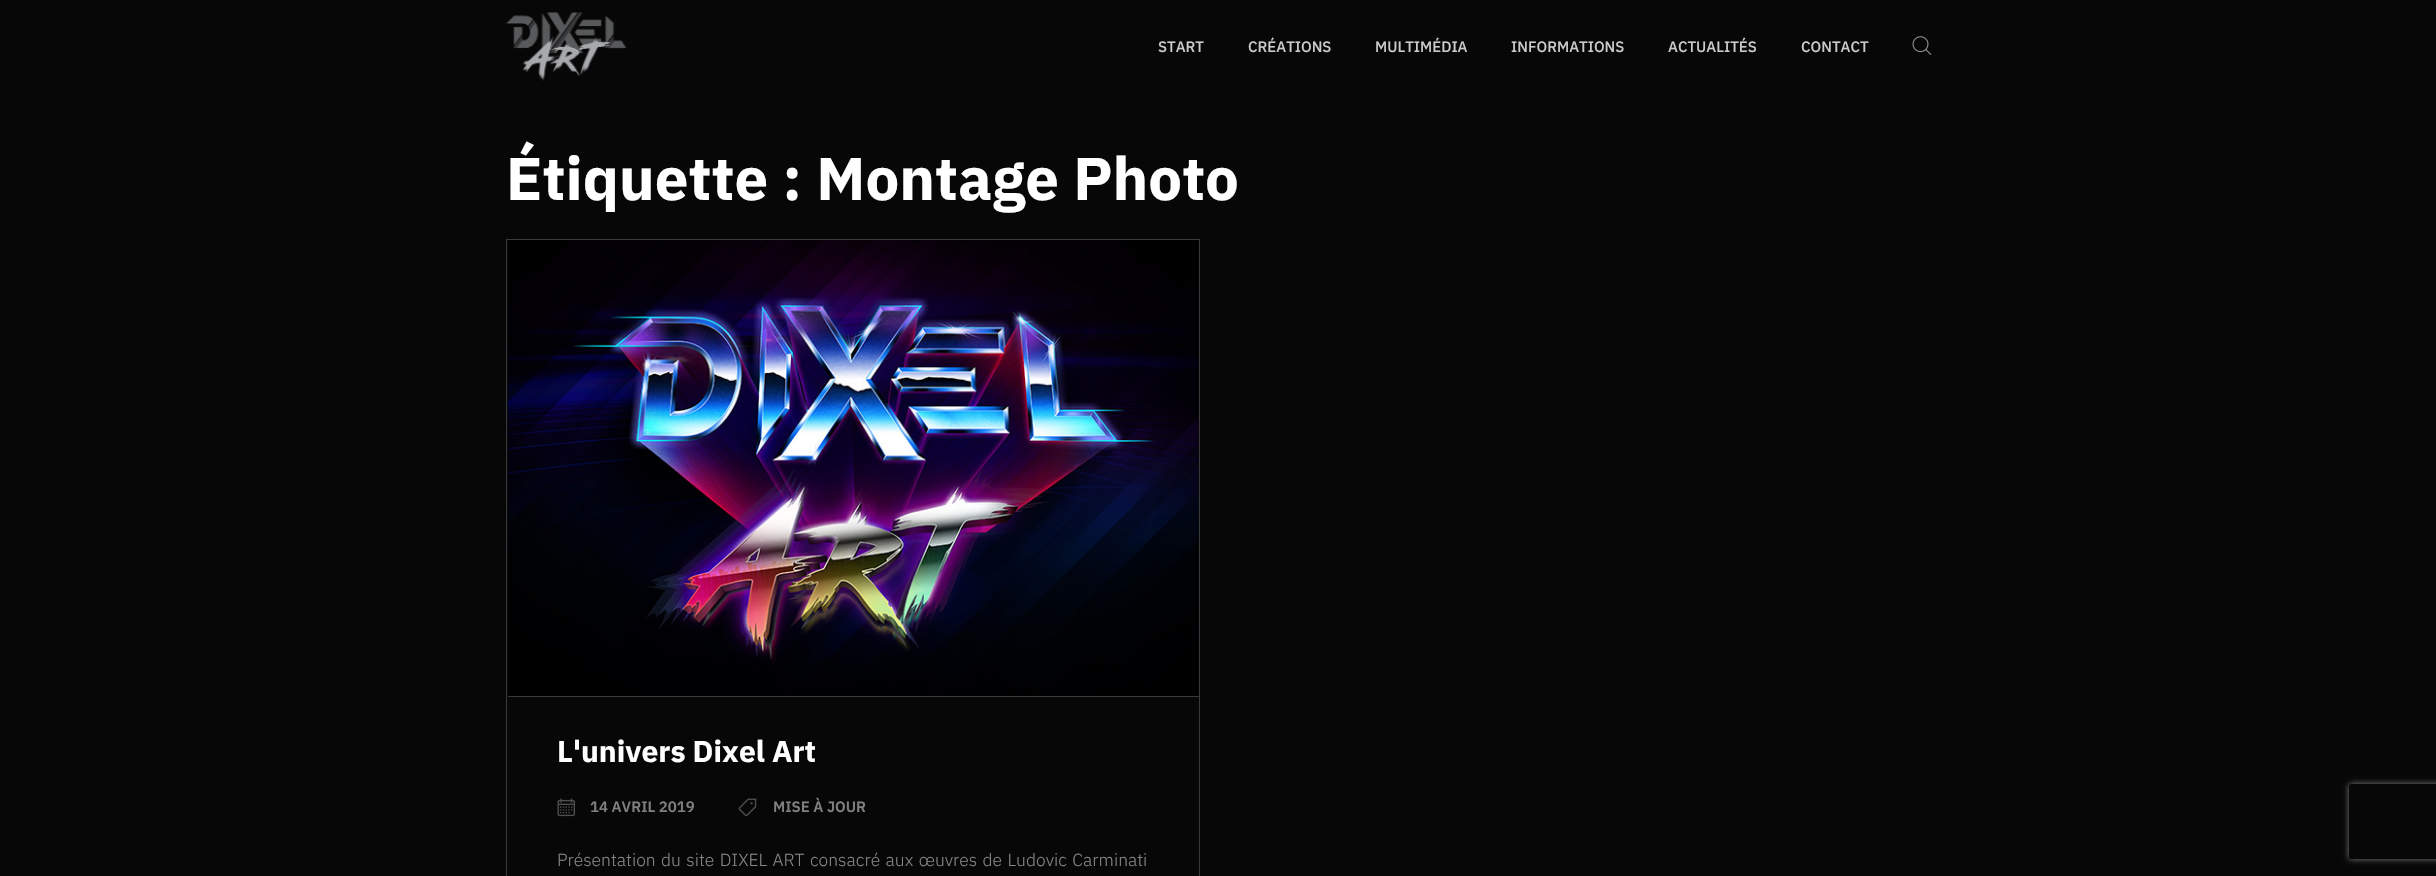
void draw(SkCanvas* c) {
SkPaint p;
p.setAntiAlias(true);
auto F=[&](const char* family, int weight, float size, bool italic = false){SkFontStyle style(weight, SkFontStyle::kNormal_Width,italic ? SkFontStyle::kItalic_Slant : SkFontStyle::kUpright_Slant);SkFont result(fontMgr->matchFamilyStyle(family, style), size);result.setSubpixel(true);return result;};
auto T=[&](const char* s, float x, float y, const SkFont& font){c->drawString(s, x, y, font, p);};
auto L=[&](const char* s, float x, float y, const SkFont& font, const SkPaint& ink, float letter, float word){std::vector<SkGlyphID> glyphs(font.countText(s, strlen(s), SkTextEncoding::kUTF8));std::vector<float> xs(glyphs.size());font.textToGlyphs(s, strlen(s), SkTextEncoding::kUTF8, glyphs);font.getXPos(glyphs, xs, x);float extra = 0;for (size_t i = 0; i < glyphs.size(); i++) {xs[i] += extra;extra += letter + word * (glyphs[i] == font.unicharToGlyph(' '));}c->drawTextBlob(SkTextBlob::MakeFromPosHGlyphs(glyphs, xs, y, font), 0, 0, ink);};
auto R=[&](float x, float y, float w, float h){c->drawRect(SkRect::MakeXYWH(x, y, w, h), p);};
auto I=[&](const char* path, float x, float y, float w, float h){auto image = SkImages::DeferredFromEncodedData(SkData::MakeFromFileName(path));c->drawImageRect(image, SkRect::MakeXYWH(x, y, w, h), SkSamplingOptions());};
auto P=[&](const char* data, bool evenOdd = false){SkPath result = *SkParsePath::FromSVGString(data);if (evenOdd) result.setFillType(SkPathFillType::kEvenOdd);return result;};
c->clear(0xff070707);
I("1.png",506,12,121,69);
auto f1 = F("IBM Plex Sans",500,15);
p.setColor(0xffcbcbcb);
T("START",1158,52,f1);
T("CRÉATIONS",1248,52,f1);
T("MULTIMÉDIA",1375,52,f1);
T("INFORMATIONS",1511,52,f1);
T("ACTUALITÉS",1668,52,f1);
T("CONTACT",1801,52,f1);
I("2.png",1912,36,20,19);
auto f2 = F("IBM Plex Sans",700,60);
p.setColor(0xffffffff);
T("Étiquette : Montage Photo",506,200,f2);
p.setStroke(true);
p.setStrokeWidth(1);
p.setColor(0xff393939);
c->drawRect(SkRect::MakeXYWH(506.5,239.5,693,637),p);
p.setStroke(false);
R(508,696,691,1);
I("3.png",507,240,692,456);
auto f3 = F("IBM Plex Sans",700,30);
p.setColor(0xffffffff);
T("L'univers Dixel Art",557,762,f3);
I("4.png",557,798,18,19);
auto f4 = F("IBM Plex Sans",600,15);
p.setColor(0xff7f7f7f);
T("14 AVRIL 2019",590,812,f4);
I("5.png",738,798,19,18);
T("MISE À JOUR",773,812,f4);
auto f5 = F("IBM Plex Sans",300,17.5);
p.setColor(0xff878787);
L("Présentation du site DIXEL ART consacré aux œuvres de Ludovic Carminati",557,866,f5,p,0,1.25);
c->save();
c->clipPath(P("M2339 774h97v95h-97zm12.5 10h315c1.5 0 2.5 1 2.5 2.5v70c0 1.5-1 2.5-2.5 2.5h-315c-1.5 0-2.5-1-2.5-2.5v-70c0-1.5 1-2.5 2.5-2.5z",true),true);
p.setColor(0xff808080);
p.setMaskFilter(SkMaskFilter::MakeBlur(kNormal_SkBlurStyle, 3));
c->drawRoundRect(SkRect::MakeXYWH(2349,784,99,75),2.5,2.5,p);
p.setMaskFilter(nullptr);
c->restore();
}
